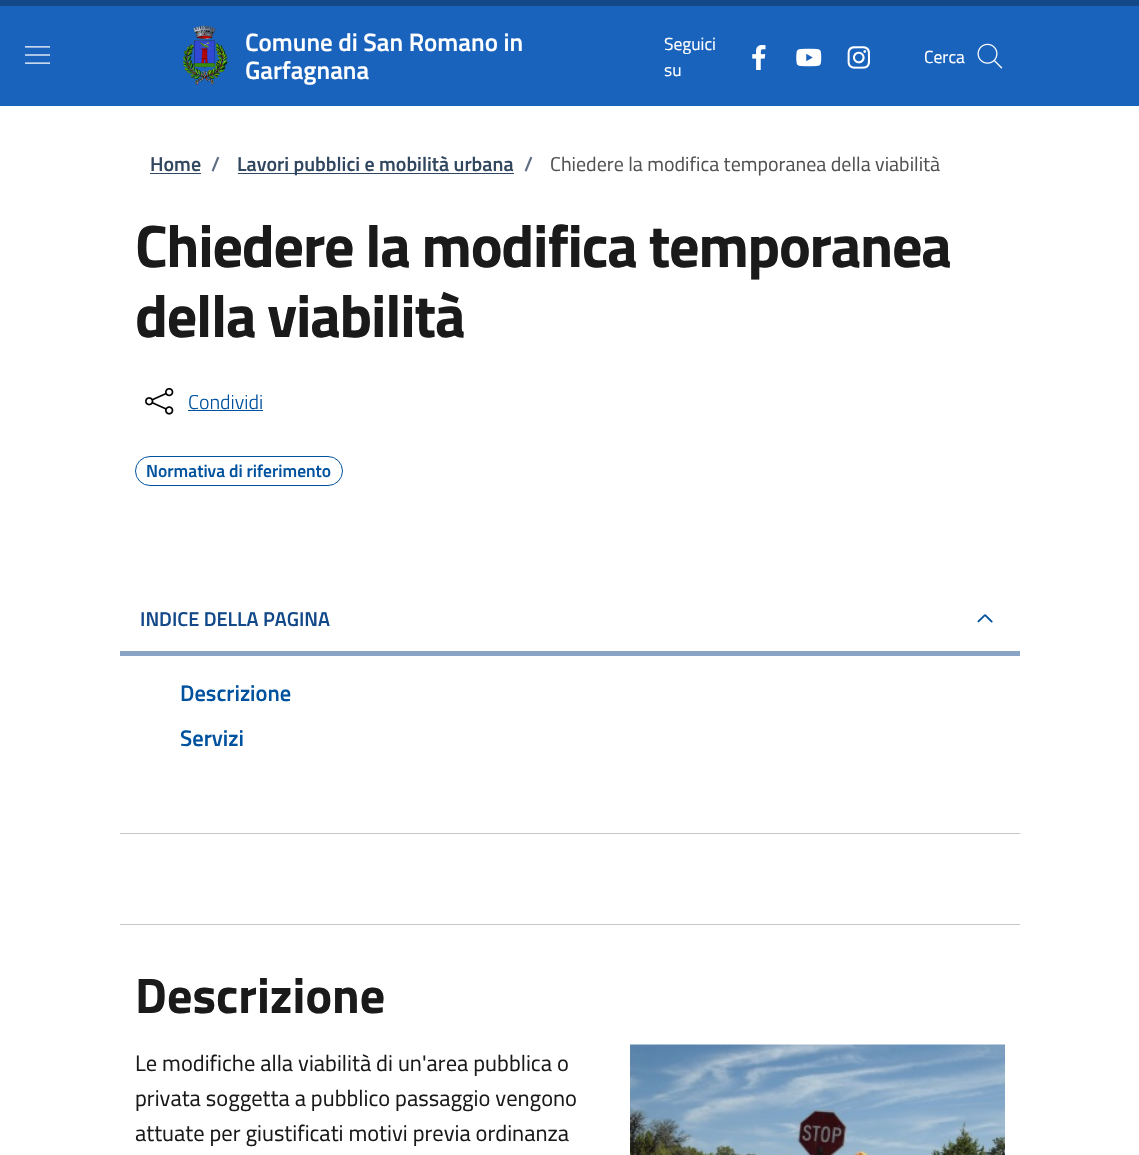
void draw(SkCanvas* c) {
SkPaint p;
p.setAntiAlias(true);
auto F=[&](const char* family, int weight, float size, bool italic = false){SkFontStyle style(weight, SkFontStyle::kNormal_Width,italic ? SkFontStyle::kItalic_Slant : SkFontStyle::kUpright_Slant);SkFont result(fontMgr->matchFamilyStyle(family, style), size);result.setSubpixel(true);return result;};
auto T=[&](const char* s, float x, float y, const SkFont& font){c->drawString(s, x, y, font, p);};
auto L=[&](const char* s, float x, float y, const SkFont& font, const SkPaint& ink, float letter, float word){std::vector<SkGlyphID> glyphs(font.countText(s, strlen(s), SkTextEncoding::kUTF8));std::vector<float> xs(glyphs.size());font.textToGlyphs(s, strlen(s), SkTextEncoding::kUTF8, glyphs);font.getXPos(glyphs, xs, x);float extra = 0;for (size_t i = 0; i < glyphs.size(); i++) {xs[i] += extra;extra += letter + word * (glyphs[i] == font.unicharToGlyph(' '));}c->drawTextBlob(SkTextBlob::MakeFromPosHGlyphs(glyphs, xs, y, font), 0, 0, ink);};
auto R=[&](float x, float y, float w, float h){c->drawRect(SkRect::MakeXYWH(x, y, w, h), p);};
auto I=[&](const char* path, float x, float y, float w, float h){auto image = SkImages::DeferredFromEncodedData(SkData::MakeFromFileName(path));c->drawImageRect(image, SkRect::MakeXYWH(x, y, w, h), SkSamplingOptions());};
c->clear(0xffffffff);
p.setColor(0xff134889);
R(0,0,1139,6);
p.setColor(0xff1a63bc);
R(0,6,1139,100);
I("1.png",25,46,25,18);
I("2.png",182,25,46,60);
auto f1 = F("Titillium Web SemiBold",600,25);
p.setColor(0xffffffff);
T("Comune di San Romano in",245,51,f1);
T("Garfagnana",245,79,f1);
auto f2 = F("Titillium Web",400,17.5);
T("Seguici",664,50,f2);
T("su",664,76,f2);
I("3.png",752,45,14,25);
I("4.png",796,48,26,19);
I("5.png",847,46,23,23);
T("Cerca",924,63,f2);
I("6.png",977,43,26,26);
auto f3 = F("Titillium Web SemiBold",600,20);
p.setColor(0xff30475f);
T("Home",150,171,f3);
R(150,173,51,1);
p.setColor(0xff5d7083);
T("/",211,171,f3);
p.setColor(0xff30475f);
R(238,173,276,1);
T("Lavori pubblici e mobilità urbana",237,171,f3);
p.setColor(0xff5d7083);
T("/",524,171,f3);
auto f4 = F("Titillium Web",400,20);
p.setColor(0xff525252);
T("Chiedere la modifica temporanea della viabilità",550,171,f4);
auto f5 = F("Titillium Web",700,60);
p.setColor(0xff1a1a1a);
L("Chiedere la modifica temporanea",135,267,f5,p,-1.25,0);
L("della viabilità",135,337,f5,p,-1.25,0);
I("7.png",145,388,29,27);
auto f6 = F("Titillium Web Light",300,20);
p.setColor(0xff00529e);
T("Condividi",188,409,f6);
R(188,410,75,1);
p.setStroke(true);
p.setStrokeWidth(1);
c->drawRoundRect(SkRect::MakeXYWH(135.5,456.5,207,29),14.5,14.5,p);
auto f7 = F("Titillium Web SemiBold",600,17.5);
p.setStroke(false);
T("Normativa di riferimento",146,477,f7);
p.setColor(0xffc5c7c9);
R(120,833,900,1);
p.setColor(0xff134889);
T("INDICE DELLA PAGINA",140,626,f3);
I("8.png",977,614,16,9);
p.setColor(0xff89a4c4);
R(120,651,900,5);
auto f8 = F("Titillium Web SemiBold",600,22.5);
p.setColor(0xff00529e);
T("Descrizione",180,701,f8);
T("Servizi",180,746,f8);
p.setColor(0xffc5c7c9);
R(120,924,900,1);
auto f9 = F("Titillium Web",700,50);
p.setColor(0xff1a1a1a);
T("Descrizione",135,1013,f9);
auto f10 = F("Titillium Web",400,22.5);
T("Le modifiche alla viabilità di un'area pubblica o",135,1071,f10);
T("privata soggetta a pubblico passaggio vengono",135,1106,f10);
T("attuate per giustificati motivi previa ordinanza",135,1141,f10);
I("9.png",630,1044,375,111);
}
